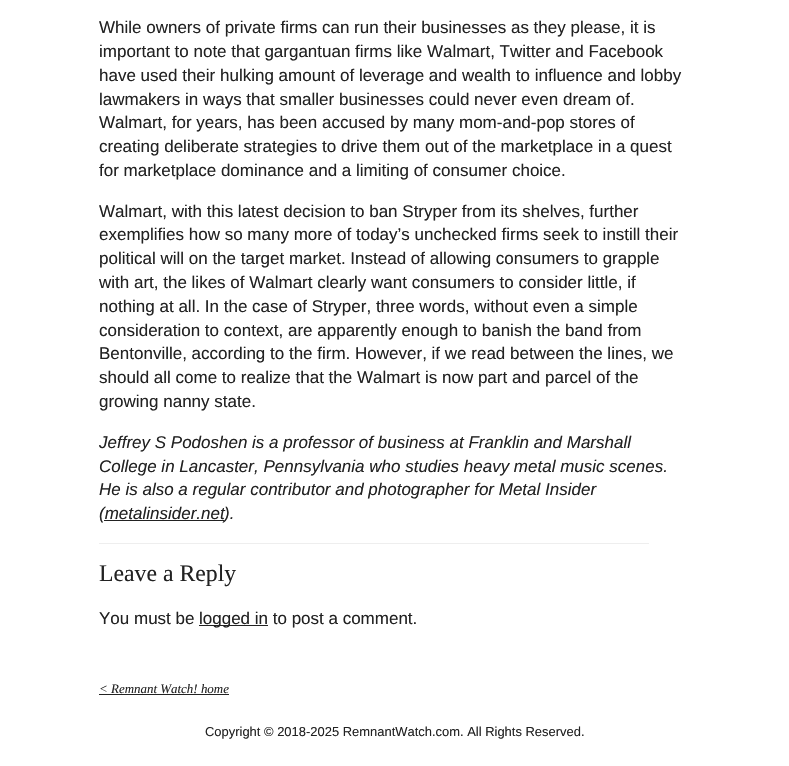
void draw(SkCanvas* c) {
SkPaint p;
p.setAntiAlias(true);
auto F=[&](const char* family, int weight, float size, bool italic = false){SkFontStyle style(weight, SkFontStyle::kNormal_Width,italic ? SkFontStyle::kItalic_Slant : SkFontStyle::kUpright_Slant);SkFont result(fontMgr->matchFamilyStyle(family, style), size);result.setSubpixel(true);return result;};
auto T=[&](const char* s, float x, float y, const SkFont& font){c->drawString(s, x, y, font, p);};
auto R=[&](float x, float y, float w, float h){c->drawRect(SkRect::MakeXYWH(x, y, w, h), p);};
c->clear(0xffffffff);
auto f1 = F("Liberation Sans",400,17);
p.setColor(0xff222222);
T("While owners of private firms can run their businesses as they please, it is",99,33,f1);
T("important to note that gargantuan firms like Walmart, Twitter and Facebook",99,57,f1);
T("have used their hulking amount of leverage and wealth to influence and lobby",99,81,f1);
T("lawmakers in ways that smaller businesses could never even dream of.",99,105,f1);
T("Walmart, for years, has been accused by many mom-and-pop stores of",99,128,f1);
T("creating deliberate strategies to drive them out of the marketplace in a quest",99,152,f1);
T("for marketplace dominance and a limiting of consumer choice.",99,176,f1);
T("Walmart, with this latest decision to ban Stryper from its shelves, further",99,217,f1);
T("exemplifies how so many more of today’s unchecked firms seek to instill their",99,240,f1);
T("political will on the target market. Instead of allowing consumers to grapple",99,264,f1);
T("with art, the likes of Walmart clearly want consumers to consider little, if",99,288,f1);
T("nothing at all. In the case of Stryper, three words, without even a simple",99,312,f1);
T("consideration to context, are apparently enough to banish the band from",99,336,f1);
T("Bentonville, according to the firm. However, if we read between the lines, we",99,359,f1);
T("should all come to realize that the Walmart is now part and parcel of the",99,383,f1);
T("growing nanny state.",99,407,f1);
auto f2 = F("Liberation Sans",400,17,true);
T("Jeffrey S Podoshen is a professor of business at Franklin and Marshall",99,448,f2);
T("College in Lancaster, Pennsylvania who studies heavy metal music scenes.",99,472,f2);
T("He is also a regular contributor and photographer for Metal Insider",99,495,f2);
T("(metalinsider.net",99,519,f2);
R(104,520,120,1);
T(").",224,519,f2);
p.setColor(0xffeeeeee);
R(99,543,550,1);
auto f3 = F("Liberation Serif",400,23.75);
p.setColor(0xff222222);
T("Leave a Reply",99,581,f3);
T("You must be",99,624,f1);
R(199,625,69,1);
T("logged in to post a comment.",199,624,f1);
auto f4 = F("Liberation Serif",400,12.95,true);
T("< Remnant Watch! home",99,693,f4);
R(99,694,130,1);
auto f5 = F("Liberation Sans",400,12.95);
T("Copyright © 2018-2025 RemnantWatch.com. All Rights Reserved.",205,736,f5);
}
